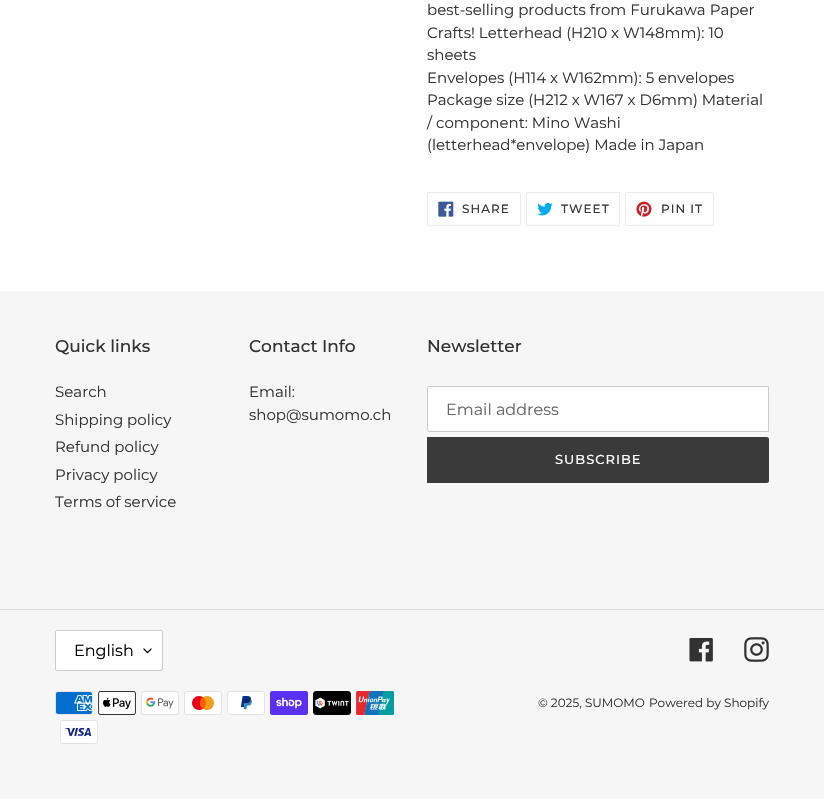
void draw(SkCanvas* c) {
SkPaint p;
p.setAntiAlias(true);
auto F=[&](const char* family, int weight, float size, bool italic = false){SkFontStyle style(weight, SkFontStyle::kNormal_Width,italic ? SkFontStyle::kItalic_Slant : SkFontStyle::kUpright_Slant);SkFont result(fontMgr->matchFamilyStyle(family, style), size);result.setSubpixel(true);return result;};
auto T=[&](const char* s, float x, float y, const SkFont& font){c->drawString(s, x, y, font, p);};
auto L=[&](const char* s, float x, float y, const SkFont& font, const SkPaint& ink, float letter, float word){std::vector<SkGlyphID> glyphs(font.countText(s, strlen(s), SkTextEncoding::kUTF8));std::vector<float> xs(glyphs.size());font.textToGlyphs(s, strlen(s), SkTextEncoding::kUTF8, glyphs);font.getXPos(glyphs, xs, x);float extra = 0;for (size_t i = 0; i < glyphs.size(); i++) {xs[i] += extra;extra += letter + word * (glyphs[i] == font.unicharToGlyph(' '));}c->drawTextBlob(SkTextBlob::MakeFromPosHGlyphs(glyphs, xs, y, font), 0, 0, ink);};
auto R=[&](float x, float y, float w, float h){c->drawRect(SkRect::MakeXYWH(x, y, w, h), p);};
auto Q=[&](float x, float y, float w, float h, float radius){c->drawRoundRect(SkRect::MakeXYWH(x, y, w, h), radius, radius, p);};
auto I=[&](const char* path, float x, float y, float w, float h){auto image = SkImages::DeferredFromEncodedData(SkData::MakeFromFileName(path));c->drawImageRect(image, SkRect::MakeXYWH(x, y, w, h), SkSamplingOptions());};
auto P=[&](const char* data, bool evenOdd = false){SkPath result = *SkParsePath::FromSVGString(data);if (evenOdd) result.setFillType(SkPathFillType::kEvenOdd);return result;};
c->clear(0xffffffff);
auto f1 = F("Montserrat",400,15);
p.setColor(0xff333232);
T("best-selling products from Furukawa Paper",427,15,f1);
T("Crafts! Letterhead (H210 x W148mm): 10",427,38,f1);
T("sheets",427,60,f1);
T("Envelopes (H114 x W162mm): 5 envelopes",427,83,f1);
T("Package size (H212 x W167 x D6mm) Material",427,105,f1);
T("/ component: Mino Washi",427,128,f1);
T("(letterhead*envelope) Made in Japan",427,150,f1);
p.setStroke(true);
p.setStrokeWidth(1);
p.setColor(0xffebebeb);
c->drawRoundRect(SkRect::MakeXYWH(427.5,192.5,93,33),1.5,1.5,p);
I("1.png",438,201,16,16);
auto f2 = F("Montserrat",500,12);
p.setStroke(false);
p.setColor(0xff3a3a3a);
L("SHARE",462,213,f2,p,1,0);
p.setStroke(true);
p.setColor(0xffebebeb);
c->drawRoundRect(SkRect::MakeXYWH(526.5,192.5,93,33),1.5,1.5,p);
I("2.png",537,202,16,14);
p.setStroke(false);
p.setColor(0xff3a3a3a);
L("TWEET",561,213,f2,p,1,0);
p.setStroke(true);
p.setColor(0xffebebeb);
c->drawRoundRect(SkRect::MakeXYWH(625.5,192.5,88,33),1.5,1.5,p);
I("3.png",636,201,16,16);
p.setStroke(false);
p.setColor(0xff3a3a3a);
L("PIN IT",661,213,f2,p,1,0);
p.setColor(0xfff6f6f6);
R(0,291,824,508);
auto f3 = F("Montserrat",500,17);
p.setColor(0xff333232);
T("Quick links",55,352,f3);
T("Search",55,397,f1);
T("Shipping policy",55,425,f1);
T("Refund policy",55,452,f1);
T("Privacy policy",55,480,f1);
T("Terms of service",55,507,f1);
T("Contact Info",249,352,f3);
T("Email:",249,397,f1);
T("shop@sumomo.ch",249,420,f1);
T("Newsletter",427,352,f3);
p.setColor(0xffffffff);
c->drawPath(P("M429 386.5h339.5v45h-339.5c-1 0-1.5-.5-1.5-1.5v-42c0-1 .5-1.5 1.5-1.5z"),p);
p.setStroke(true);
p.setColor(0xffcccccc);
c->drawPath(P("M429 386.5h339.5v45h-339.5c-1 0-1.5-.5-1.5-1.5v-42c0-1 .5-1.5 1.5-1.5z"),p);
auto f4 = F("Montserrat",400,16);
p.setStroke(false);
p.setColor(0xff666666);
T("Email address",446,415,f4);
p.setColor(0xff3a3a3a);
c->drawPath(P("M427 437h340c1 0 2 1 2 2v42c0 1-1 2-2 2h-340z"),p);
auto f5 = F("Montserrat",500,13);
p.setColor(0xffffffff);
L("SUBSCRIBE",555,464,f5,p,1,0);
p.setColor(0xffdddddd);
R(0,609,824,1);
p.setColor(0xffffffff);
Q(55,630,108,41,2);
I("4.png",143,648,9,6);
p.setStroke(true);
p.setColor(0xffcccccc);
c->drawRoundRect(SkRect::MakeXYWH(55.5,630.5,107,40),1.5,1.5,p);
p.setStroke(false);
p.setColor(0xff000000);
T("English",74,656,f4);
I("5.png",689,638,24,24);
I("6.png",744,637,25,25);
I("7.png",55,691,38,24);
I("8.png",98,691,38,24);
I("9.png",141,691,38,24);
I("10.png",184,691,38,24);
I("11.png",227,691,38,24);
I("12.png",270,691,38,24);
I("13.png",313,691,38,24);
I("14.png",356,691,38,24);
I("15.png",60,720,38,24);
auto f6 = F("Montserrat",400,12);
p.setColor(0xff333232);
T("© 2025, SUMOMO",538,707,f6);
T("Powered by Shopify",649,707,f6);
}
